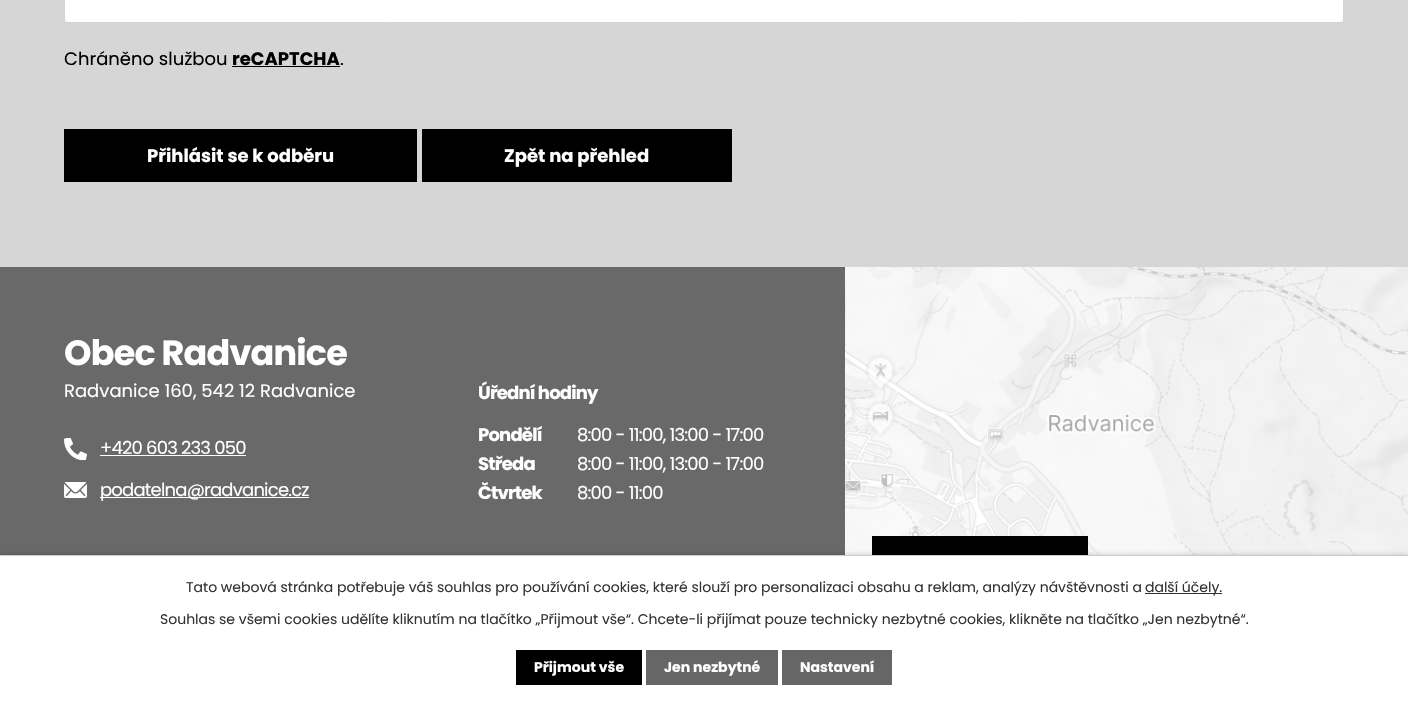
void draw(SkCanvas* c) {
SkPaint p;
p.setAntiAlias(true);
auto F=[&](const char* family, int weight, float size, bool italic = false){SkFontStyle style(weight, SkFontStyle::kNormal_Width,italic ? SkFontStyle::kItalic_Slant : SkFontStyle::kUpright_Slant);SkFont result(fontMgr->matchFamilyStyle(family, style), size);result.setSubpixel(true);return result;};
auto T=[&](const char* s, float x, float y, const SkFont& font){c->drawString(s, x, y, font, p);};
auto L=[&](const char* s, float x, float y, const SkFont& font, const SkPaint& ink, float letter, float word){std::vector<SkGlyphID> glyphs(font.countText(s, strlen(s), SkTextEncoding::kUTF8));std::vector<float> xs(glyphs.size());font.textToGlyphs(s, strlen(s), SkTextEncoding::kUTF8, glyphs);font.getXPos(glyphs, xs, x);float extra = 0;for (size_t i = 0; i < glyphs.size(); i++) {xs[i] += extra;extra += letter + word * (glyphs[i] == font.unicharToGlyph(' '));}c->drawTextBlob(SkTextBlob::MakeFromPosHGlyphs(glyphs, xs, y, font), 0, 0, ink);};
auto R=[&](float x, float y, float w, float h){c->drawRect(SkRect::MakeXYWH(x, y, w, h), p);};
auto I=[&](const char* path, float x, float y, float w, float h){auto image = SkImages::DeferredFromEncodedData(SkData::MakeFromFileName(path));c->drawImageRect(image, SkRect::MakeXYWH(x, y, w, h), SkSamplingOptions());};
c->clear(0xffd6d6d6);
p.setColor(0xffffffff);
c->drawRoundRect(SkRect::MakeXYWH(64.5,-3.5,1279,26),2.5,2.5,p);
p.setStroke(true);
p.setStrokeWidth(1);
p.setColor(0xffd3d3d3);
c->drawRoundRect(SkRect::MakeXYWH(64.5,-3.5,1279,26),2.5,2.5,p);
auto f1 = F("Poppins",400,18);
p.setStroke(false);
p.setColor(0xff000000);
T("Chráněno službou",64,65,f1);
auto f2 = F("Poppins",700,18);
T("reCAPTCHA",232,65,f2);
R(232,66,108,1);
T(".",340,65,f1);
R(64,129,353,53);
p.setColor(0xffffffff);
T("Přihlásit se k odběru",147,162,f2);
p.setColor(0xff000000);
R(422,129,310,53);
p.setColor(0xffffffff);
T("Zpět na přehled",504,162,f2);
p.setColor(0xff696969);
R(0,267,845,288);
auto f3 = F("Poppins",700,35);
p.setColor(0xffffffff);
L("Obec Radvanice",64,365,f3,p,-.8,0);
T("Radvanice 160, 542 12 Radvanice",64,397,f1);
I("1.png",64,438,23,23);
L("+420 603 233 050",100,454,f1,p,-.8,0);
R(100,455,146,1);
I("2.png",64,482,23,16);
R(100,497,209,1);
L("podatelna@radvanice.cz",100,496,f1,p,-.8,0);
L("Úřední hodiny",478,399,f2,p,-.8,0);
L("Pondělí",478,441,f2,p,-.8,0);
L("8:00 - 11:00, 13:00 - 17:00",577,441,f1,p,-.8,0);
L("Středa",478,470,f2,p,-.8,0);
L("8:00 - 11:00, 13:00 - 17:00",577,470,f1,p,-.8,0);
L("Čtvrtek",478,499,f2,p,-.8,0);
L("8:00 - 11:00",577,499,f1,p,-.8,0);
I("3.png",845,267,563,288);
p.setColor(0xff000000);
R(872,536,216,19);
p.setColor(0x33000000);
p.setMaskFilter(SkMaskFilter::MakeBlur(kNormal_SkBlurStyle, 2.5));
c->drawRect(SkRect::MakeXYWH(0,555,1408,149),p);
p.setMaskFilter(nullptr);
p.setColor(0xffffffff);
R(0,556,1408,148);
p.setColor(0xffcccccc);
R(0,555,1408,1);
auto f4 = F("Poppins",400,14);
p.setColor(0xff333333);
T("Tato webová stránka potřebuje váš souhlas pro používání cookies, které slouží pro personalizaci obsahu a reklam, analýzy návštěvnosti a",186,592,f4);
R(1145,593,77,1);
T("další účely.",1145,592,f4);
T("Souhlas se všemi cookies udělíte kliknutím na tlačítko „Přijmout vše“. Chcete-li přijímat pouze technicky nezbytné cookies, klikněte na tlačítko „Jen nezbytné“.",160,624,f4);
p.setColor(0xff000000);
R(516,650,126,35);
auto f5 = F("Poppins",700,14);
p.setColor(0xffffffff);
T("Přijmout vše",534,672,f5);
p.setColor(0xff666666);
R(646,650,132,35);
p.setColor(0xffffffff);
T("Jen nezbytné",664,672,f5);
p.setColor(0xff666666);
R(782,650,110,35);
p.setColor(0xffffffff);
T("Nastavení",800,672,f5);
}
